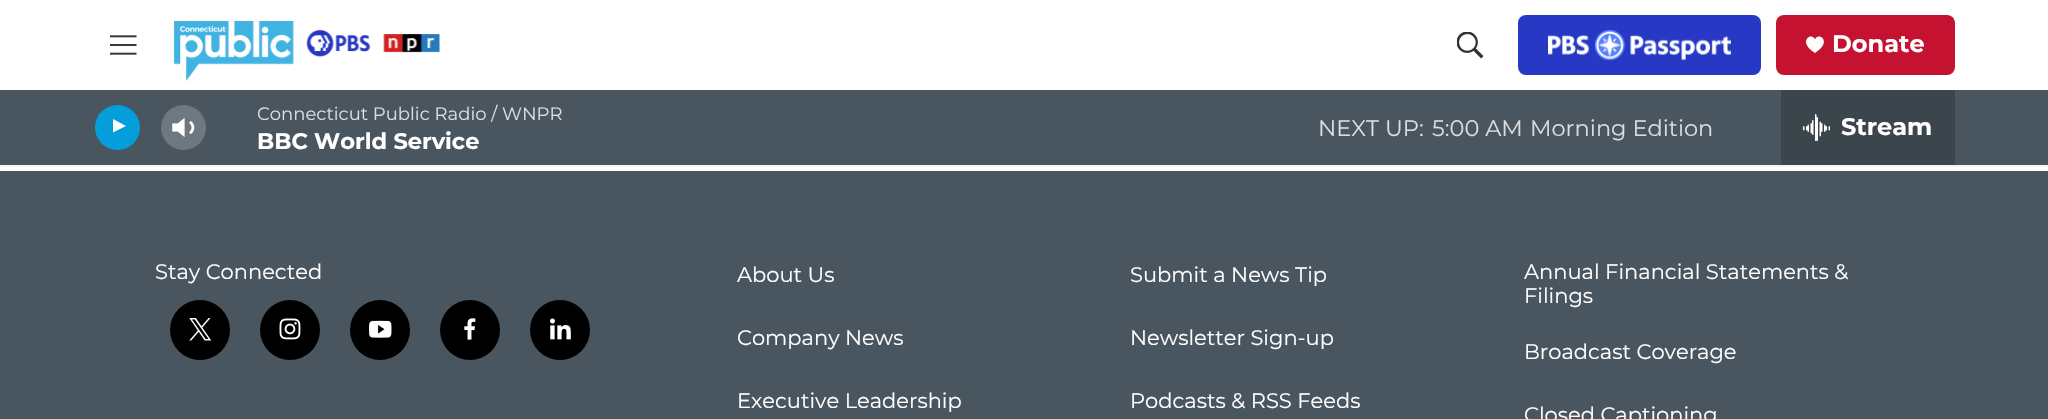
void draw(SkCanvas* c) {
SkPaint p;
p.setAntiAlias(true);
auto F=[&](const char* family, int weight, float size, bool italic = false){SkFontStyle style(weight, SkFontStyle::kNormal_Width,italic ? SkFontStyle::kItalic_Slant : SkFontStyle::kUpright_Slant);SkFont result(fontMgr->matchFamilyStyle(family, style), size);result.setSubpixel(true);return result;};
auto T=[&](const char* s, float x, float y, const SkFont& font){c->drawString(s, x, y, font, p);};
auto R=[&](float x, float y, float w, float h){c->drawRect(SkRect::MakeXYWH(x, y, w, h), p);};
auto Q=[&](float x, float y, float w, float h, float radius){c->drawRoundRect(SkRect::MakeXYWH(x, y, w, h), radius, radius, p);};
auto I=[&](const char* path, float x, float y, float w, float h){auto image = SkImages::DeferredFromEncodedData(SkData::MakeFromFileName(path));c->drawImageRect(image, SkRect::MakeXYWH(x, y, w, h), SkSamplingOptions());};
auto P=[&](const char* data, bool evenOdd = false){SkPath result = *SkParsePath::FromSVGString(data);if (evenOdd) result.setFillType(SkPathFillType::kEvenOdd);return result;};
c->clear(0xffffffff);
p.setColor(0xfff5f5f5);
R(0,165,2048,2);
I("1.png",110,35,27,20);
I("2.png",174,21,266,60);
I("3.png",1457,32,27,27);
p.setColor(0xff2638c4);
Q(1518,15,243,60,8);
I("4.png",1548,30,183,30);
p.setColor(0xffc41230);
Q(1776,15,179,60,8);
p.setColor(0xffffffff);
c->drawPath(P("M1815 39.5c-3-8-18.5 2 0 13.5c18.5-11.5 3-21.5 0-13.5z"),p);
auto f1 = F("Montserrat",700,24);
T("Donate",1832,52,f1);
p.setColor(0xff4a565f);
R(0,90,2048,75);
p.setColor(0xff049fda);
c->drawCircle(117.5,127.5,22.5,p);
c->save();
c->clipRect(SkRect::MakeXYWH(113,117,17,23));
p.setColor(0xffffffff);
c->drawPath(P("M112 118.5l14 7.5l-14 7z"),p);
c->restore();
I("5.png",172,118,23,19);
p.setColor(0x33ffffff);
c->drawCircle(183.5,127.5,22.5,p);
auto f2 = F("Montserrat",400,18);
p.setColor(0xffdbdddf);
T("Connecticut Public Radio / WNPR",257,120,f2);
auto f3 = F("Montserrat",700,22.5);
p.setColor(0xffffffff);
T("BBC World Service",257,149,f3);
auto f4 = F("Montserrat",400,22.5);
p.setColor(0xffdbdddf);
T("NEXT UP:",1318,136,f4);
T("5:00 AM",1432,136,f4);
T("Morning Edition",1530,136,f4);
p.setColor(0xff3b454c);
R(1781,90,174,75);
I("6.png",1803,114,27,27);
p.setColor(0xffffffff);
T("Stream",1841,135,f1);
p.setColor(0xff4a565f);
R(0,171,2048,248);
auto f5 = F("Montserrat",400,21);
p.setColor(0xffffffff);
T("Stay Connected",155,279,f5);
p.setColor(0xff000000);
c->drawCircle(200,330,30,p);
I("7.png",189,318,23,23);
c->drawCircle(290,330,30,p);
I("8.png",279,318,22,22);
c->drawCircle(380,330,30,p);
I("9.png",369,320,23,18);
c->drawCircle(470,330,30,p);
I("10.png",464,318,12,22);
c->drawCircle(560,330,30,p);
I("11.png",550,318,21,22);
p.setColor(0xffffffff);
T("About Us",737,282,f5);
T("Submit a News Tip",1130,282,f5);
T("Annual Financial Statements &",1524,279,f5);
T("Filings",1524,303,f5);
T("Company News",737,345,f5);
T("Newsletter Sign-up",1130,345,f5);
T("Broadcast Coverage",1524,359,f5);
T("Executive Leadership",737,408,f5);
T("Podcasts & RSS Feeds",1130,408,f5);
T("Closed Captioning",1524,422,f5);
}
